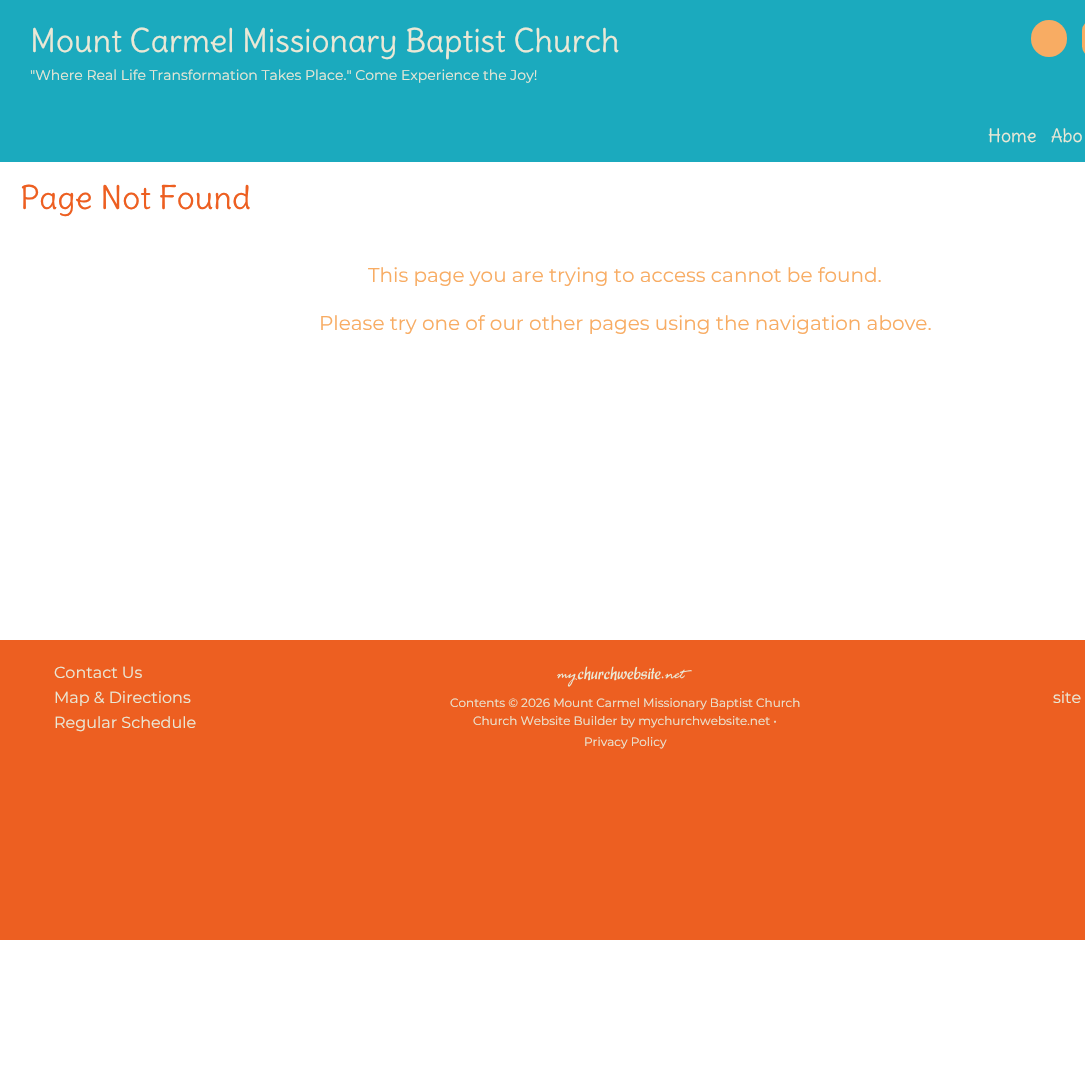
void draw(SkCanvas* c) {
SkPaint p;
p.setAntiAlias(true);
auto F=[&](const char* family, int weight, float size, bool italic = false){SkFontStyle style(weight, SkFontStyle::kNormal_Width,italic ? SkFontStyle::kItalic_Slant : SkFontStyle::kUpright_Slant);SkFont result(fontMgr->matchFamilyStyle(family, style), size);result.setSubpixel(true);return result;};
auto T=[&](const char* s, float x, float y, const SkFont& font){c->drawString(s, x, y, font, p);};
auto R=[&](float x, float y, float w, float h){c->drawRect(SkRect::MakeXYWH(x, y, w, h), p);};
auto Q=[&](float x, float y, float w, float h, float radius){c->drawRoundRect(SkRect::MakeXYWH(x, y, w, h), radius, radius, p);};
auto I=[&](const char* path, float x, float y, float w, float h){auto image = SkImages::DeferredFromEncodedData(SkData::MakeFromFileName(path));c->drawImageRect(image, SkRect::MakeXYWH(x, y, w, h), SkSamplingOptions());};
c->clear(0xffffffff);
p.setColor(0xff1baabe);
R(0,0,1085,162);
auto f1 = F("Delius",400,32);
p.setColor(0xffeae8d6);
T("Mount Carmel Missionary Baptist Church",30,52,f1);
p.setColor(0xfff8ac63);
Q(1031,20,36,37,18);
Q(1082,20,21,37,18);
auto f2 = F("Montserrat",400,14);
p.setColor(0xffeae8d6);
T("\"Where Real Life Transformation Takes Place.\" Come Experience the Joy!",30,80,f2);
auto f3 = F("Delius",400,18);
T("Home",988,142,f3);
T("Abo",1051,142,f3);
p.setColor(0xffed5f21);
T("Page Not Found",20,209,f1);
auto f4 = F("Montserrat",400,20);
p.setColor(0xfff8ac63);
T("This page you are trying to access cannot be found.",368,282,f4);
T("Please try one of our other pages using the navigation above.",319,330,f4);
p.setColor(0xffed5f21);
R(0,640,1085,300);
auto f5 = F("Montserrat",400,16);
p.setColor(0xffeae8d6);
T("Contact Us",54,678,f5);
T("Map & Directions",54,703,f5);
T("Regular Schedule",54,728,f5);
I("1.png",557,666,135,21);
auto f6 = F("Montserrat",400,12);
T("Contents © 2026 Mount Carmel Missionary Baptist Church",450,707,f6);
T("Church Website Builder by mychurchwebsite.net •",473,725,f6);
T("Privacy Policy",584,746,f6);
T("site",1053,703,f5);
}
